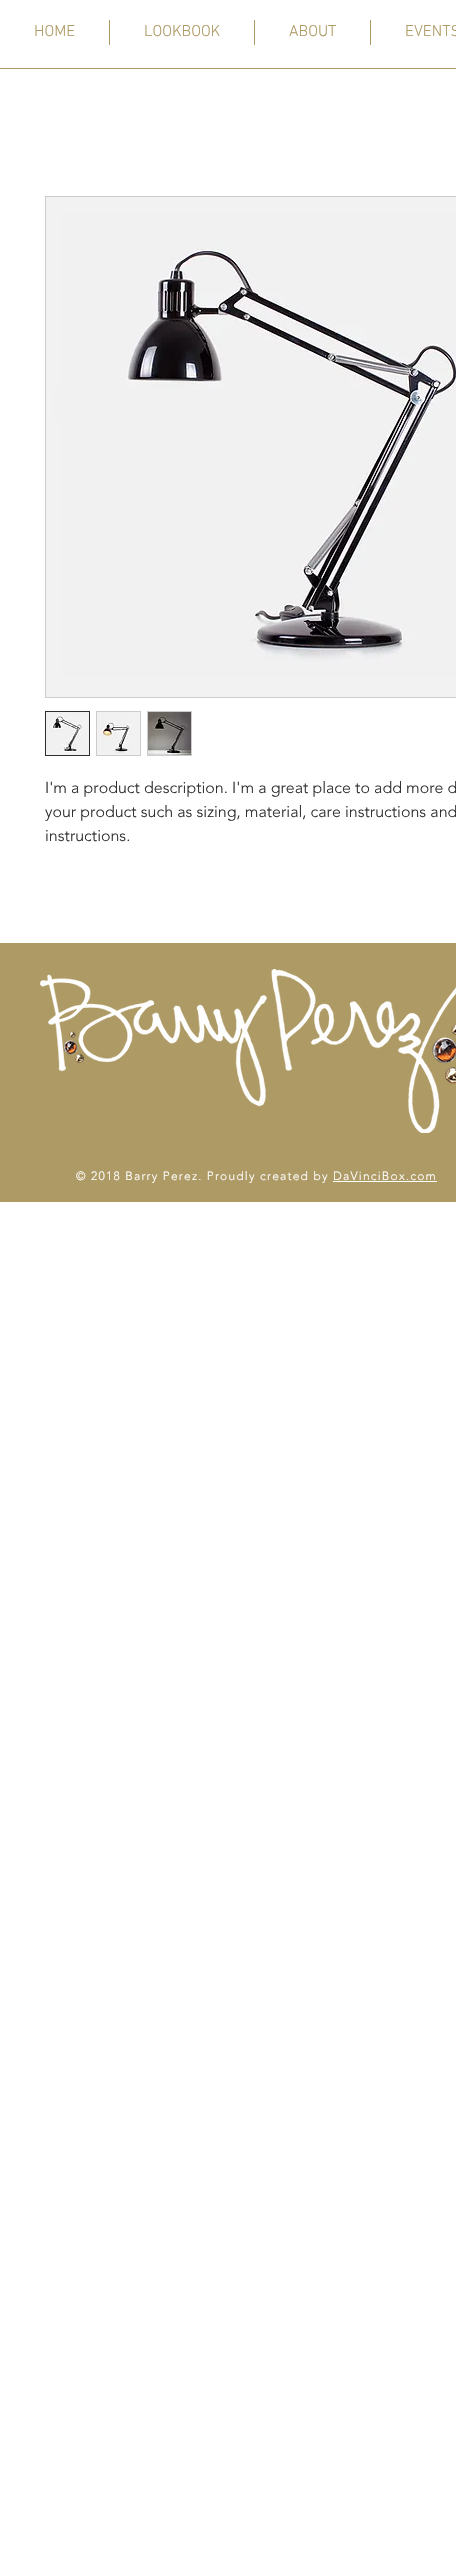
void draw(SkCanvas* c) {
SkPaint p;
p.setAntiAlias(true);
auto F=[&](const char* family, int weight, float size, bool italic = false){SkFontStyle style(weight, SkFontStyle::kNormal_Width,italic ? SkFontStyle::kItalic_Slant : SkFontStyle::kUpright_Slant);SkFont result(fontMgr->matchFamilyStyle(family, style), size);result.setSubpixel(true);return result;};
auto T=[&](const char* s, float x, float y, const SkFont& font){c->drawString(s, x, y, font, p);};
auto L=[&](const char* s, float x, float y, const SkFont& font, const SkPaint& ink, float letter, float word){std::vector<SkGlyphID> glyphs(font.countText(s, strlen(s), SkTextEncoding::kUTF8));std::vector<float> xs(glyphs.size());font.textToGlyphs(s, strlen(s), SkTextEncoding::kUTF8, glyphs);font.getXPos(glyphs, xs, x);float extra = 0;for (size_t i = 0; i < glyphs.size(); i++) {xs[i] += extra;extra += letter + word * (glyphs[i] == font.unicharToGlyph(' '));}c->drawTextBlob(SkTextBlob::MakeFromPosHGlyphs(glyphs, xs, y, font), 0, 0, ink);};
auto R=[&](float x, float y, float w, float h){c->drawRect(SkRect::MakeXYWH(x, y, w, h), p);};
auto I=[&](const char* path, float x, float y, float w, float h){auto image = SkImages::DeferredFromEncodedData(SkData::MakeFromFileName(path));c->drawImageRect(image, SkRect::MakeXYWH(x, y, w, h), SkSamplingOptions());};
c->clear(0xffffffff);
auto f1 = F("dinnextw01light",300,16);
p.setColor(0xffae9a65);
T("HOME",34,36,f1);
R(109,20,1,25);
T("LOOKBOOK",144,36,f1);
R(254,20,1,25);
T("ABOUT",289,36,f1);
R(370,20,1,25);
T("EVENTS",405,36,f1);
R(0,68,456,1);
p.setStroke(true);
p.setStrokeWidth(1);
p.setColor(0xffcccccc);
c->drawRect(SkRect::MakeXYWH(45.5,196.5,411,501),p);
I("1.png",46,197,410,500);
p.setColor(0xff2f2e2e);
c->drawRect(SkRect::MakeXYWH(45.5,711.5,44,44),p);
I("2.png",46,712,43,43);
p.setColor(0xffcccccc);
c->drawRect(SkRect::MakeXYWH(96.5,711.5,44,44),p);
I("3.png",97,712,43,43);
c->drawRect(SkRect::MakeXYWH(147.5,711.5,44,44),p);
I("4.png",148,712,43,43);
auto f2 = F("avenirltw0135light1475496",300,16);
p.setStroke(false);
p.setColor(0xff2f2e2e);
T("I'm a product description. I'm a great place to add more d",45,793,f2);
T("your product such as sizing, material, care instructions and",45,817,f2);
T("instructions.",45,841,f2);
p.setColor(0xffae9a65);
R(0,943,456,259);
I("5.png",40,969,416,164);
auto f3 = F("avenirltw0135light1475496",300,12);
p.setColor(0xffffffff);
L("© 2018 Barry Perez. Proudly created by DaVinciBox.com",76,1180,f3,p,1.2,0);
R(333,1181,104,1);
}
